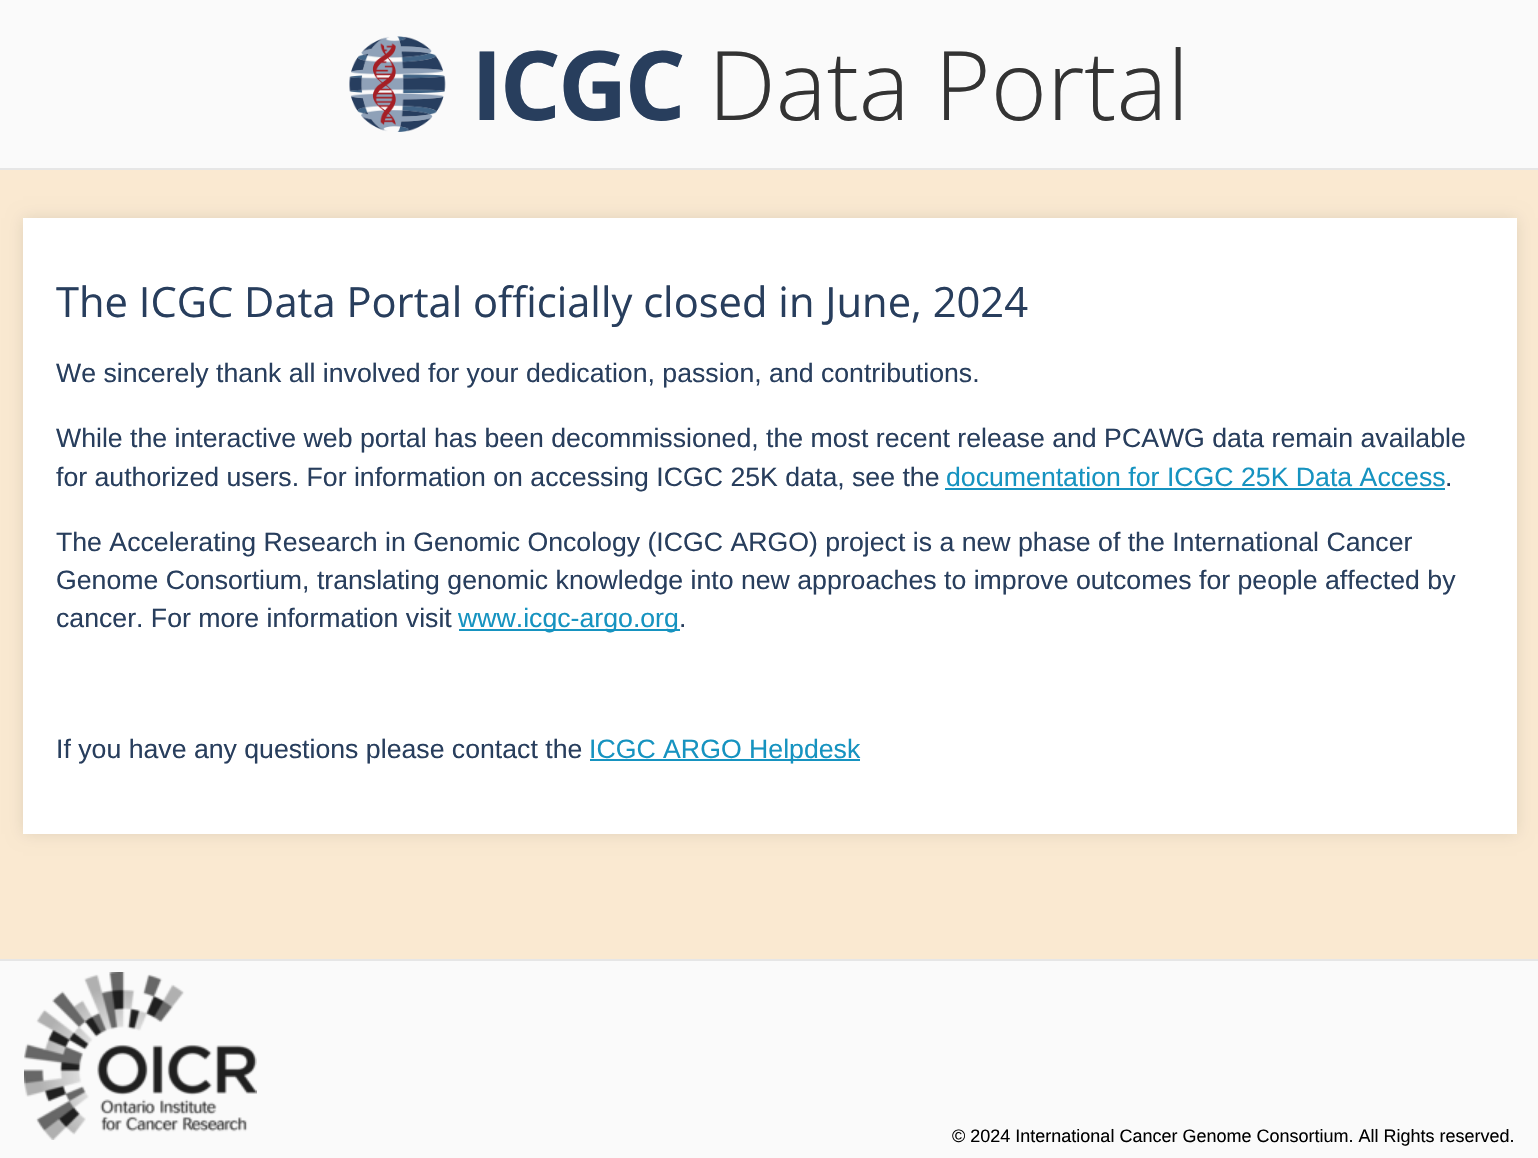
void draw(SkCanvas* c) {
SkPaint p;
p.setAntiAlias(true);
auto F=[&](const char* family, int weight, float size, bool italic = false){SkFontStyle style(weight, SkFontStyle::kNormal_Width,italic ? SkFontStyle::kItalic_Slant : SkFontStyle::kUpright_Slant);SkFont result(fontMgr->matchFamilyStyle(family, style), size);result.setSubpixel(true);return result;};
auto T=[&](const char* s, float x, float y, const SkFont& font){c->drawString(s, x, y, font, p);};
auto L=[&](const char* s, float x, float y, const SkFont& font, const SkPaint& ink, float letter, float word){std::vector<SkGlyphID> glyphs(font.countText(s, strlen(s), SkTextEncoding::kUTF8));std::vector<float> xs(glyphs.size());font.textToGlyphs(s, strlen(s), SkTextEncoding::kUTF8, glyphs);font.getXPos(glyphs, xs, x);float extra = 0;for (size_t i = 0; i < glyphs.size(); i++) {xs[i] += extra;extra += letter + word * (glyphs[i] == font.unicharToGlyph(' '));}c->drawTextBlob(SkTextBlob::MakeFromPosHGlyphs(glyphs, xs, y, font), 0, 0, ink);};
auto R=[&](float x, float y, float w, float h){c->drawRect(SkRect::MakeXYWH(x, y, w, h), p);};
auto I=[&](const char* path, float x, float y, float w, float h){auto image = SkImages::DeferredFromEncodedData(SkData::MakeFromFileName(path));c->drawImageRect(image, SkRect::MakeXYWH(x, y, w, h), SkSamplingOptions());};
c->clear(0xfffae9d1);
p.setColor(0xfffafafa);
R(0,0,1538,168);
p.setColor(0xffe6e6e6);
R(0,168,1538,2);
I("1.png",349,36,97,96);
auto f1 = F("Open Sans",700,96);
p.setColor(0xff283e5d);
L("ICGC",471,120,f1,p,-3,0);
auto f2 = F("Open Sans",300,96);
p.setColor(0xff333333);
T("Data Portal",708,120,f2);
p.setColor(0x1a000000);
p.setMaskFilter(SkMaskFilter::MakeBlur(kNormal_SkBlurStyle, 7.5));
c->drawRect(SkRect::MakeXYWH(23,218,1494,616),p);
p.setMaskFilter(nullptr);
p.setColor(0xffffffff);
R(23,218,1494,616);
auto f3 = F("Open Sans",400,41.7);
p.setColor(0xff283e5d);
T("The ICGC Data Portal officially closed in June, 2024",56,317,f3);
auto f4 = F("Liberation Sans",400,26.67);
T("We sincerely thank all involved for your dedication, passion, and contributions.",56,382,f4);
T("While the interactive web portal has been decommissioned, the most recent release and PCAWG data remain available",56,447,f4);
T("for authorized users. For information on accessing ICGC 25K data, see the",56,486,f4);
p.setColor(0xff1693c0);
T("documentation for ICGC 25K Data Access",946,486,f4);
R(945,488,500,2);
p.setColor(0xff283e5d);
T(".",1445,486,f4);
T("The Accelerating Research in Genomic Oncology (ICGC ARGO) project is a new phase of the International Cancer",56,551,f4);
T("Genome Consortium, translating genomic knowledge into new approaches to improve outcomes for people affected by",56,589,f4);
T("cancer. For more information visit",56,627,f4);
p.setColor(0xff1693c0);
R(459,629,221,2);
T("www.icgc-argo.org",458,627,f4);
p.setColor(0xff283e5d);
T(".",679,627,f4);
T("If you have any questions please contact the",56,758,f4);
p.setColor(0xff1693c0);
R(590,759,270,2);
T("ICGC ARGO Helpdesk",589,758,f4);
p.setColor(0xfffafafa);
R(0,961,1538,197);
p.setColor(0xffe6e6e6);
R(0,959,1538,2);
I("2.png",24,972,233,168);
auto f5 = F("Liberation Sans",400,18);
p.setColor(0xff000000);
T("© 2024 International Cancer Genome Consortium. All Rights reserved.",952,1142,f5);
}
